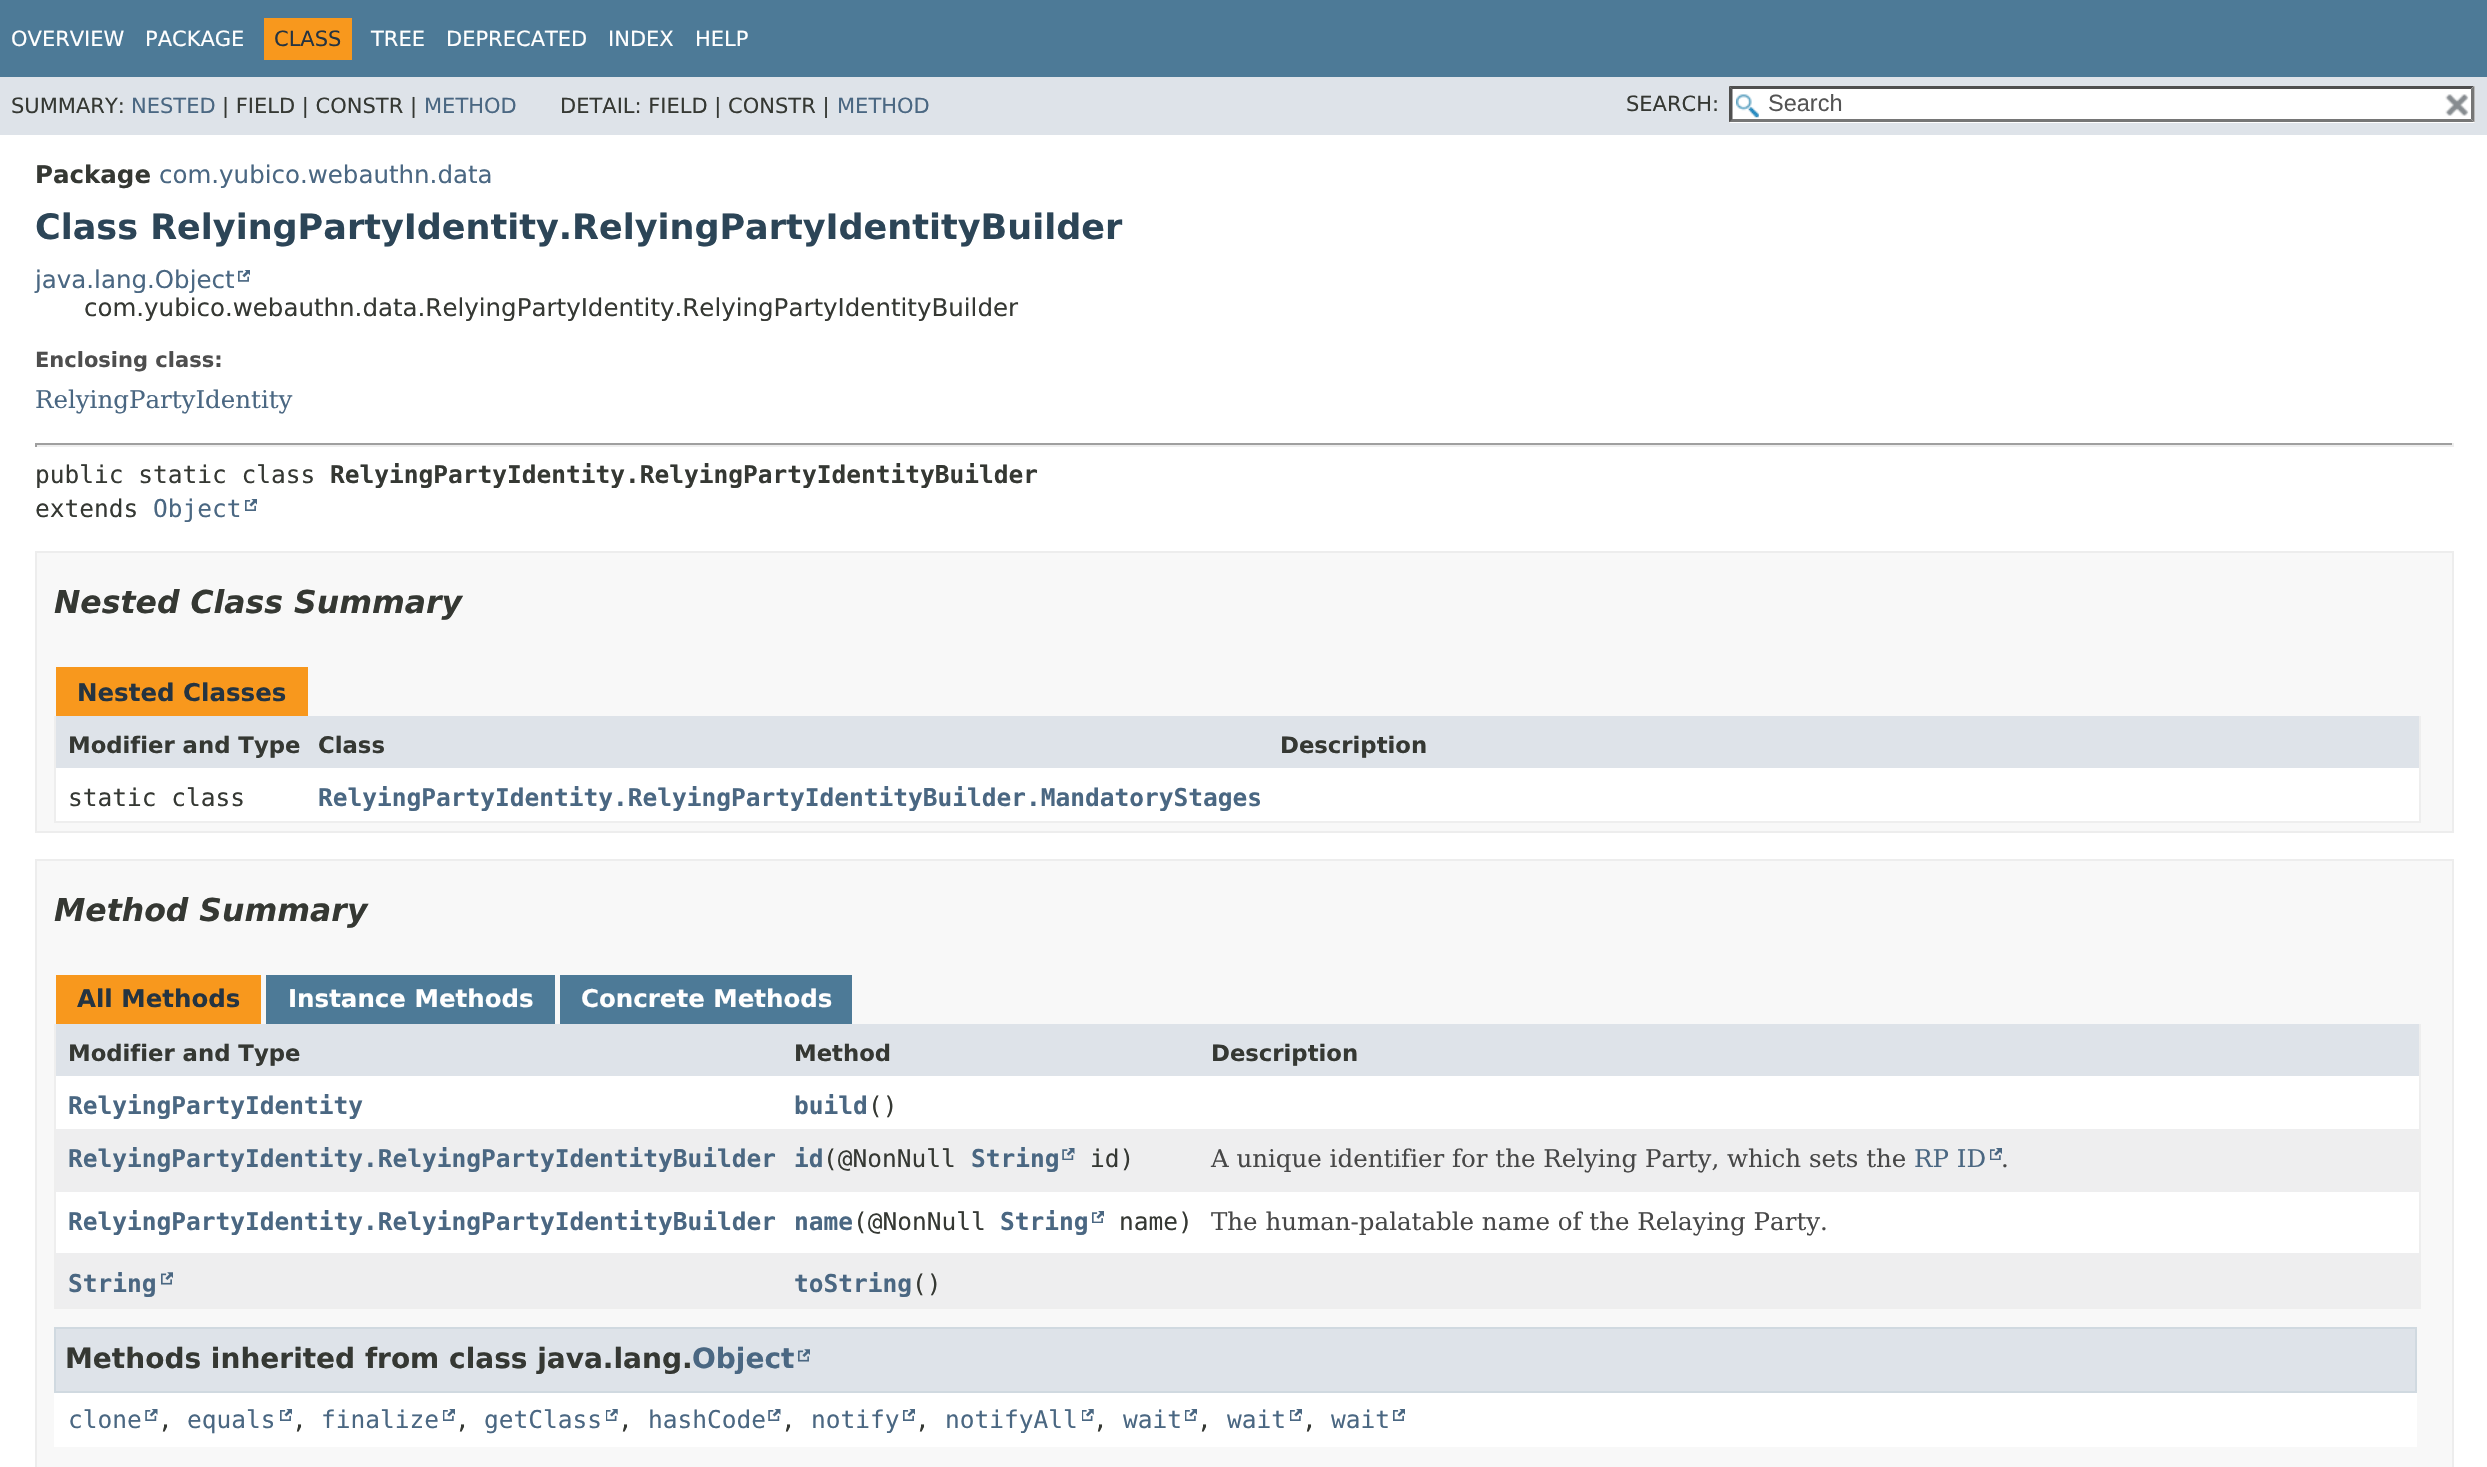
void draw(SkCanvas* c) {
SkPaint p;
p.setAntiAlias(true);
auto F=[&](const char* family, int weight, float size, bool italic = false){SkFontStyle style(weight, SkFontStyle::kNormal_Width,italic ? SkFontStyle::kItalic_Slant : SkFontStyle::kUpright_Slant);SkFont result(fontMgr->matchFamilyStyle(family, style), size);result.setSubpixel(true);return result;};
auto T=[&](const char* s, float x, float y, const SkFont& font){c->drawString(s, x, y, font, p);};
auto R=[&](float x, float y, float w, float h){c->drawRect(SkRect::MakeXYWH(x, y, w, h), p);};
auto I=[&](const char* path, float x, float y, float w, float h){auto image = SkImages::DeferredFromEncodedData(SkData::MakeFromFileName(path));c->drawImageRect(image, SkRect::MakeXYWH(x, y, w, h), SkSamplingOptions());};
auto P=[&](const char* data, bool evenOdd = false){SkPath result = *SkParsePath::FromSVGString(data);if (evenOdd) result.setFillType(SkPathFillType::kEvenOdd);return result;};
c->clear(0xffffffff);
p.setColor(0xff4d7a97);
R(0,0,2487,77);
auto f1 = F("DejaVu Sans",400,21);
p.setColor(0xffffffff);
T("OVERVIEW",11,46,f1);
T("PACKAGE",145,46,f1);
p.setColor(0xfff8981d);
R(264,18,88,42);
p.setColor(0xff253441);
T("CLASS",274,46,f1);
p.setColor(0xffffffff);
T("TREE",371,46,f1);
T("DEPRECATED",446,46,f1);
T("INDEX",608,46,f1);
T("HELP",695,46,f1);
p.setColor(0xffdee3e9);
R(0,77,2487,58);
p.setColor(0xff353833);
T("SUMMARY:",11,113,f1);
p.setColor(0xff4a6782);
T("NESTED",131,113,f1);
p.setColor(0xff353833);
T("| FIELD | CONSTR |",222,113,f1);
p.setColor(0xff4a6782);
T("METHOD",424,113,f1);
p.setColor(0xff353833);
T("DETAIL: FIELD | CONSTR |",560,113,f1);
p.setColor(0xff4a6782);
T("METHOD",837,113,f1);
p.setColor(0xff353833);
T("SEARCH:",1626,111,f1);
p.setColor(0xffffffff);
R(1729,86,746,37);
I("1.png",1736,94,23,24);
p.setColor(0xff4f4f4f);
c->drawPath(P("M1729 86h745l-3 3h-739z"),p);
p.setColor(0xff767676);
c->drawPath(P("M2474.5 86v36.5l-3.5-3.5v-30z"),p);
c->drawPath(P("M2474 122h-745l3-3h739z"),p);
p.setColor(0xff4f4f4f);
c->drawPath(P("M1729 122.5v-36.5l3.5 3v30z"),p);
auto f2 = F("Liberation Sans",400,23.5);
p.setColor(0xff545454);
T("Search",1768,111,f2);
I("2.png",2445,94,24,22);
auto f3 = F("DejaVu Sans",700,24.5);
p.setColor(0xff353833);
T("Package",35,183,f3);
auto f4 = F("DejaVu Sans",400,24.5);
p.setColor(0xff4a6782);
T("com.yubico.webauthn.data",159,183,f4);
auto f5 = F("DejaVu Sans",700,35);
p.setColor(0xff2c4557);
T("Class RelyingPartyIdentity.RelyingPartyIdentityBuilder",35,239,f5);
p.setColor(0xff4a6782);
T("java.lang.Object",35,288,f4);
I("3.png",238,270,12,12);
p.setColor(0xff353833);
T("com.yubico.webauthn.data.RelyingPartyIdentity.RelyingPartyIdentityBuilder",84,316,f4);
auto f6 = F("DejaVu Sans",700,21);
p.setColor(0xff4e4e4e);
T("Enclosing class:",35,367,f6);
auto f7 = F("DejaVu Serif",400,24.5);
p.setColor(0xff4a6782);
T("RelyingPartyIdentity",35,408,f7);
p.setColor(0xff9f9f9f);
R(35,443,2419,2);
p.setColor(0xffeeeeee);
R(2452,443,2,4);
R(35,445,2419,2);
p.setColor(0xff9f9f9f);
R(35,443,2,4);
auto f8 = F("DejaVu Sans Mono",400,24.5);
p.setColor(0xff353833);
T("public static class",35,483,f8);
auto f9 = F("DejaVu Sans Mono",700,24.5);
T("RelyingPartyIdentity.RelyingPartyIdentityBuilder",330,483,f9);
T("extends",35,517,f8);
p.setColor(0xff4a6782);
T("Object",153,517,f8);
I("4.png",245,499,12,12);
p.setColor(0xfff8f8f8);
c->drawRect(SkRect::MakeXYWH(36,552,2417,280),p);
p.setStroke(true);
p.setStrokeWidth(2);
p.setColor(0xffededed);
c->drawRect(SkRect::MakeXYWH(36,552,2417,280),p);
auto f10 = F("DejaVu Sans",700,31.5,true);
p.setStroke(false);
p.setColor(0xff353833);
T("Nested Class Summary",54,613,f10);
p.setColor(0xfff8981d);
R(56,667,252,49);
p.setColor(0xff253441);
T("Nested Classes",77,701,f3);
p.setColor(0xffeeeeee);
R(2419,716,2,107);
R(54,821,2366,2);
R(54,716,2,107);
p.setColor(0xffdee3e9);
R(56,716,1211,52);
auto f11 = F("DejaVu Sans",700,22.75);
p.setColor(0xff353833);
T("Modifier and Type",68,753,f11);
T("Class",318,753,f11);
p.setColor(0xffdee3e9);
R(1267,716,1152,52);
p.setColor(0xff353833);
T("Description",1280,753,f11);
p.setColor(0xffffffff);
R(56,768,1211,53);
p.setColor(0xff353833);
T("static class",68,806,f8);
p.setColor(0xff4a6782);
T("RelyingPartyIdentity.RelyingPartyIdentityBuilder.MandatoryStages",318,806,f9);
p.setColor(0xffffffff);
R(1267,768,1152,53);
p.setColor(0xfff8f8f8);
c->drawRect(SkRect::MakeXYWH(36,860,2417,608),p);
p.setStroke(true);
p.setColor(0xffededed);
c->drawRect(SkRect::MakeXYWH(36,860,2417,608),p);
p.setStroke(false);
p.setColor(0xff353833);
T("Method Summary",54,921,f10);
p.setColor(0xfff8981d);
R(56,975,205,49);
p.setColor(0xff253441);
T("All Methods",77,1007,f3);
p.setColor(0xff4d7a97);
R(266,975,289,49);
p.setColor(0xffffffff);
T("Instance Methods",288,1007,f3);
p.setColor(0xff4d7a97);
R(560,975,292,49);
p.setColor(0xffffffff);
T("Concrete Methods",581,1007,f3);
p.setColor(0xffeeeeee);
R(2419,1024,2,285);
R(54,1307,2366,2);
R(54,1024,2,285);
p.setColor(0xffdee3e9);
R(56,1024,1143,52);
p.setColor(0xff353833);
T("Modifier and Type",68,1061,f11);
T("Method",794,1061,f11);
p.setColor(0xffdee3e9);
R(1199,1024,1220,52);
p.setColor(0xff353833);
T("Description",1211,1061,f11);
p.setColor(0xffffffff);
R(56,1076,1143,53);
p.setColor(0xff4a6782);
T("RelyingPartyIdentity",68,1114,f9);
T("build",794,1114,f9);
p.setColor(0xff353833);
T("()",868,1114,f8);
p.setColor(0xffffffff);
R(1199,1076,1220,53);
p.setColor(0xffeeeeef);
R(56,1129,1143,63);
p.setColor(0xff4a6782);
T("RelyingPartyIdentity.RelyingPartyIdentityBuilder",68,1167,f9);
T("id",794,1167,f9);
p.setColor(0xff353833);
T("(@NonNull",823,1167,f8);
p.setColor(0xff4a6782);
T("String",971,1167,f9);
I("5.png",1062,1148,13,12);
p.setColor(0xff353833);
T("id)",1090,1167,f8);
p.setColor(0xffeeeeef);
R(1199,1129,1220,63);
p.setColor(0xff474747);
T("A unique identifier for the Relying Party, which sets the",1211,1167,f7);
p.setColor(0xff4a6782);
T("RP ID",1914,1167,f7);
I("6.png",1990,1148,12,12);
p.setColor(0xff474747);
T(".",2001,1167,f7);
p.setColor(0xffffffff);
R(56,1192,1143,61);
p.setColor(0xff4a6782);
T("RelyingPartyIdentity.RelyingPartyIdentityBuilder",68,1230,f9);
T("name",794,1230,f9);
p.setColor(0xff353833);
T("(@NonNull",853,1230,f8);
p.setColor(0xff4a6782);
T("String",1000,1230,f9);
I("7.png",1092,1211,12,12);
p.setColor(0xff353833);
T("name)",1119,1230,f8);
p.setColor(0xffffffff);
R(1199,1192,1220,61);
p.setColor(0xff474747);
T("The human-palatable name of the Relaying Party.",1211,1230,f7);
p.setColor(0xffeeeeef);
R(56,1253,1143,54);
p.setColor(0xff4a6782);
T("String",68,1292,f9);
I("8.png",161,1272,12,13);
T("toString",794,1292,f9);
p.setColor(0xff353833);
T("()",912,1292,f8);
p.setColor(0xffeeeeef);
R(1199,1253,1220,54);
p.setColor(0xffffffff);
R(54,1393,2363,54);
p.setColor(0xffdee3e9);
c->drawRect(SkRect::MakeXYWH(55,1328,2361,64),p);
p.setStroke(true);
p.setColor(0xffd0d9e0);
c->drawRect(SkRect::MakeXYWH(55,1328,2361,64),p);
auto f12 = F("DejaVu Sans",700,28);
p.setStroke(false);
p.setColor(0xff353833);
T("Methods inherited from class java.lang.",65,1368,f12);
p.setColor(0xff4a6782);
T("Object",692,1368,f12);
I("9.png",798,1349,12,13);
T("clone",68,1428,f8);
I("10.png",145,1409,13,12);
p.setColor(0xff353833);
T(",",158,1428,f8);
p.setColor(0xff4a6782);
T("equals",187,1428,f8);
I("4.png",280,1409,12,12);
p.setColor(0xff353833);
T(",",292,1428,f8);
p.setColor(0xff4a6782);
T("finalize",321,1428,f8);
I("11.png",443,1409,12,12);
p.setColor(0xff353833);
T(",",455,1428,f8);
p.setColor(0xff4a6782);
T("getClass",484,1428,f8);
I("12.png",606,1409,12,12);
p.setColor(0xff353833);
T(",",618,1428,f8);
p.setColor(0xff4a6782);
T("hashCode",648,1428,f8);
I("10.png",768,1409,13,12);
p.setColor(0xff353833);
T(",",781,1428,f8);
p.setColor(0xff4a6782);
T("notify",811,1428,f8);
I("4.png",903,1409,12,12);
p.setColor(0xff353833);
T(",",915,1428,f8);
p.setColor(0xff4a6782);
T("notifyAll",945,1428,f8);
I("12.png",1082,1409,12,12);
p.setColor(0xff353833);
T(",",1093,1428,f8);
p.setColor(0xff4a6782);
T("wait",1123,1428,f8);
I("11.png",1185,1409,12,12);
p.setColor(0xff353833);
T(",",1197,1428,f8);
p.setColor(0xff4a6782);
T("wait",1227,1428,f8);
I("11.png",1290,1409,12,12);
p.setColor(0xff353833);
T(",",1302,1428,f8);
p.setColor(0xff4a6782);
T("wait",1331,1428,f8);
I("4.png",1393,1409,12,12);
}
